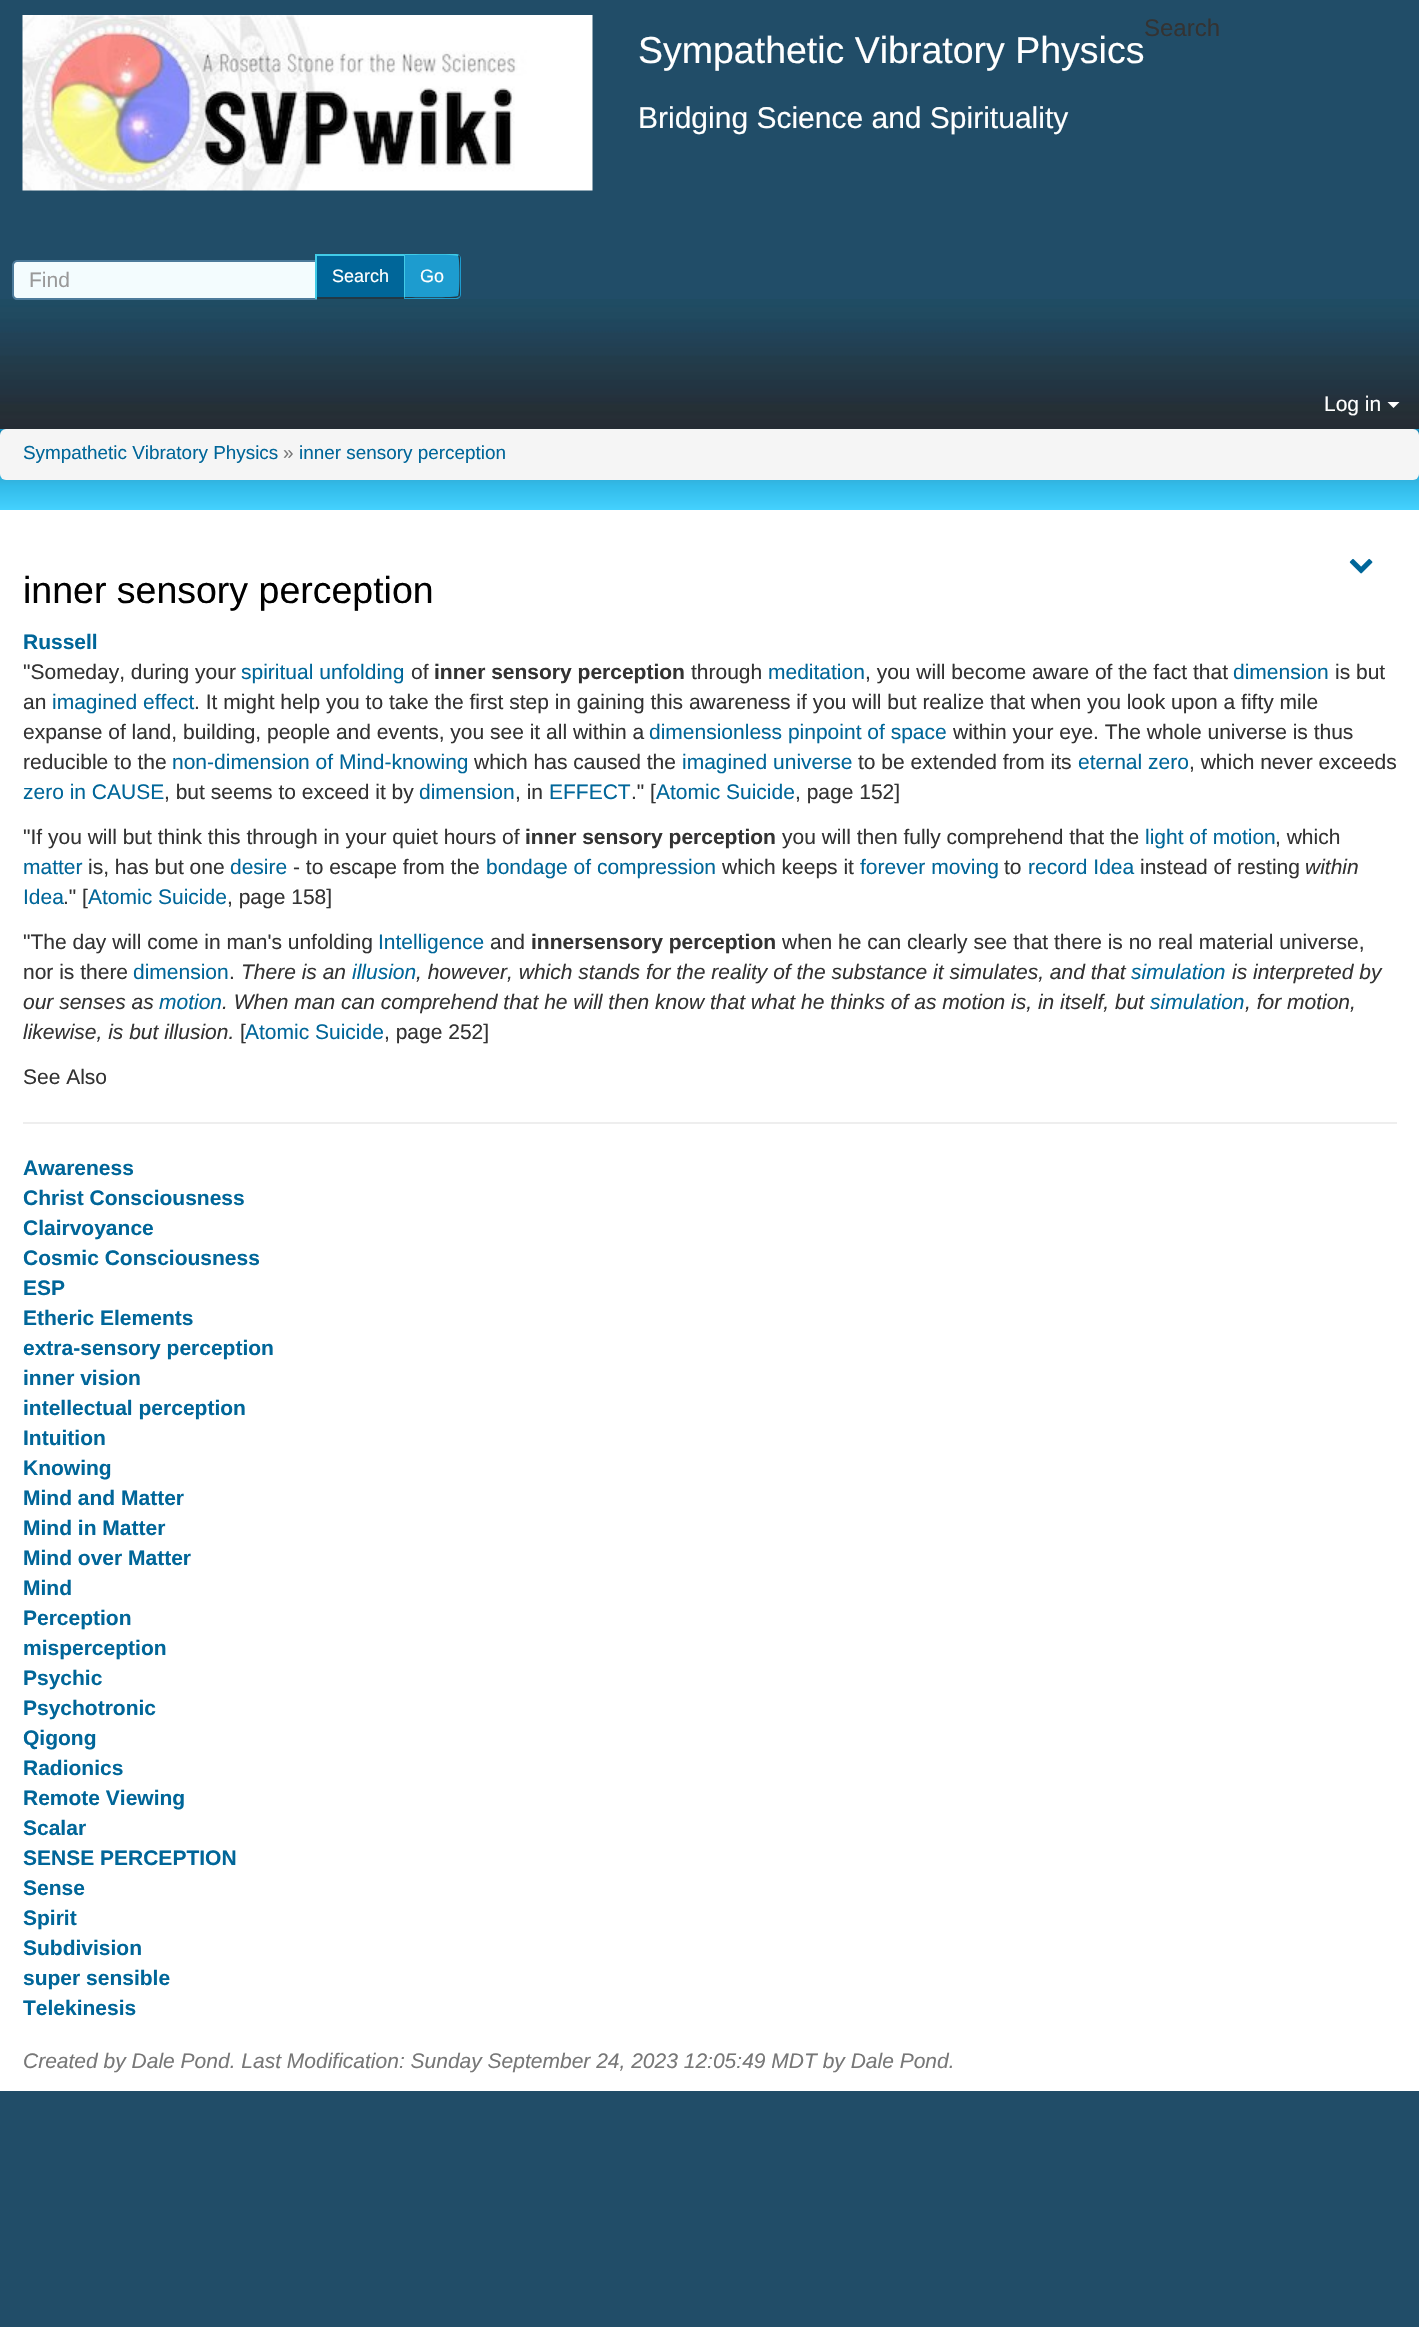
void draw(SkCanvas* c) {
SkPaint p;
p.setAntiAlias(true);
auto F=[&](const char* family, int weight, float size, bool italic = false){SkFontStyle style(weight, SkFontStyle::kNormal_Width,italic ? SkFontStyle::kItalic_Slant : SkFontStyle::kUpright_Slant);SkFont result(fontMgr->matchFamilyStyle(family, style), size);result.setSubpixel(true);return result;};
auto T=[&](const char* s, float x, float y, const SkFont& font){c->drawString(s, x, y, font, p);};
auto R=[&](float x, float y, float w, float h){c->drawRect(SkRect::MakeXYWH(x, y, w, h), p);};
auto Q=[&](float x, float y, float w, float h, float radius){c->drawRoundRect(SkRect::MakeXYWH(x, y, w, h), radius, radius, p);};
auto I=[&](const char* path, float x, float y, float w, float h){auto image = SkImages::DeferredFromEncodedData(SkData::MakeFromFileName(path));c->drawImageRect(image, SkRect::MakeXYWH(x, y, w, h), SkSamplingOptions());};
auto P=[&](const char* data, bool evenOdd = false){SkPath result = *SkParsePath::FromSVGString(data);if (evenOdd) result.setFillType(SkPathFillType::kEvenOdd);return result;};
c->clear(0xff214d68);
p.setColor(0xffffffff);
R(0,510,1419,1581);
I("1.png",0,299,1419,130);
auto f1 = F("Liberation Sans",400,24);
p.setColor(0xff333333);
T("Search",1144,36,f1);
p.setColor(0xfff3fcfe);
c->drawPath(P("M17 261h299v38h-299c-2 0-4-2-4-4v-30c0-2 2-4 4-4z"),p);
p.setStroke(true);
p.setStrokeWidth(2);
p.setColor(0xff4d7b9b);
c->drawPath(P("M17 261h299v38h-299c-2 0-4-2-4-4v-30c0-2 2-4 4-4z"),p);
auto f2 = F("Liberation Sans",400,21);
p.setStroke(false);
p.setColor(0xff999999);
T("Find",29,287,f2);
p.setColor(0xff006699);
R(317,256,87,41);
p.setColor(0xff41cbe7);
R(315,254,90,2);
p.setColor(0xff223845);
R(315,297,90,2);
p.setColor(0xff41cbe7);
R(315,254,2,45);
auto f3 = F("Liberation Sans",400,18);
p.setColor(0xffffffff);
T("Search",332,282,f3);
p.setColor(0xff1d9ccf);
c->drawPath(P("M404 254h52c3 0 5 2 5 5v35c0 3-2 5-5 5h-52z"),p);
p.setColor(0xff41cbe7);
c->drawPath(P("M404 254l1 1c6 0 51-1 53 1l1-1l-3-1z"),p);
p.setColor(0xff223845);
c->drawPath(P("M459 255c1 1 1 2 1 3v36c0 1 0 2-1 3l-1-1c2-1 2-39 0-40z"),p);
c->drawPath(P("M459 297l-3 1h-52l1-1c6 0 51 1 53-1z"),p);
p.setColor(0xff41cbe7);
c->drawPath(P("M405 255l-1-1v44l1-1z"),p);
p.setColor(0xffffffff);
T("Go",420,282,f3);
I("2.png",22,15,571,176);
auto f4 = F("Liberation Sans",400,37.5);
T("Sympathetic Vibratory Physics",638,63,f4);
auto f5 = F("Liberation Sans",400,30);
T("Bridging Science and Spirituality",638,128,f5);
T("Log in",1324,411,f2);
c->drawPath(P("M1387.5 402h12l-6 6z"),p);
{
const SkColor colors[] = {0xff2498c7,0xff047aa8,0xff1b98c6,0xff32b5e1,0xff32bbe9,0xff44d1fe};
const float stops[] = {0,.04,.39,.65,.7,1};
const SkPoint ends[] = {{710,429}, {710,510}};
p.setShader(SkGradientShader::MakeLinear(ends, colors, stops, 6, SkTileMode::kClamp));
p.setAlpha(255);
}
R(0,429,1419,81);
p.setShader(nullptr);
p.setColor(0xfff5f5f5);
Q(0,429,1419,51,6);
auto f6 = F("Liberation Sans",400,18.9);
p.setColor(0xff006699);
T("Sympathetic Vibratory Physics",23,459,f6);
p.setColor(0xff777777);
T("»",283,459,f6);
p.setColor(0xff006699);
T("inner sensory perception",299,459,f6);
I("3.png",1349,558,24,16);
p.setColor(0xff000000);
T("inner sensory perception",23,603,f4);
auto f7 = F("Liberation Sans",700,21);
p.setColor(0xff006699);
T("Russell",23,649,f7);
p.setColor(0xff333333);
T("\"Someday, during your",23,679,f2);
p.setColor(0xff006699);
T("spiritual unfolding",241,679,f2);
p.setColor(0xff333333);
T("of",411,679,f2);
T("inner sensory perception",434,679,f7);
T("through",691,679,f2);
p.setColor(0xff006699);
T("meditation",768,679,f2);
p.setColor(0xff333333);
T(", you will become aware of the fact that",865,679,f2);
p.setColor(0xff006699);
T("dimension",1233,679,f2);
p.setColor(0xff333333);
T("is but",1335,679,f2);
T("an",23,709,f2);
p.setColor(0xff006699);
T("imagined effect",52,709,f2);
p.setColor(0xff333333);
T(". It might help you to take the first step in gaining this awareness if you will but realize that when you look upon a fifty mile",194,709,f2);
T("expanse of land, building, people and events, you see it all within a",23,739,f2);
p.setColor(0xff006699);
T("dimensionless pinpoint of space",649,739,f2);
p.setColor(0xff333333);
T("within your eye. The whole universe is thus",953,739,f2);
T("reducible to the",23,769,f2);
p.setColor(0xff006699);
T("non-dimension of Mind-knowing",172,769,f2);
p.setColor(0xff333333);
T("which has caused the",474,769,f2);
p.setColor(0xff006699);
T("imagined universe",682,769,f2);
p.setColor(0xff333333);
T("to be extended from its",858,769,f2);
p.setColor(0xff006699);
T("eternal zero",1078,769,f2);
p.setColor(0xff333333);
T(", which never exceeds",1189,769,f2);
p.setColor(0xff006699);
T("zero in CAUSE",23,799,f2);
p.setColor(0xff333333);
T(", but seems to exceed it by",164,799,f2);
p.setColor(0xff006699);
T("dimension",419,799,f2);
p.setColor(0xff333333);
T(", in",515,799,f2);
p.setColor(0xff006699);
T("EFFECT",549,799,f2);
p.setColor(0xff333333);
T(".\" [",631,799,f2);
p.setColor(0xff006699);
T("Atomic Suicide",656,799,f2);
p.setColor(0xff333333);
T(", page 152]",795,799,f2);
T("\"If you will but think this through in your quiet hours of",23,844,f2);
T("inner sensory perception",525,844,f7);
T("you will then fully comprehend that the",782,844,f2);
p.setColor(0xff006699);
T("light of motion",1145,844,f2);
p.setColor(0xff333333);
T(", which",1275,844,f2);
p.setColor(0xff006699);
T("matter",23,874,f2);
p.setColor(0xff333333);
T("is, has but one",88,874,f2);
p.setColor(0xff006699);
T("desire",230,874,f2);
p.setColor(0xff333333);
T("- to escape from the",293,874,f2);
p.setColor(0xff006699);
T("bondage of compression",486,874,f2);
p.setColor(0xff333333);
T("which keeps it",722,874,f2);
p.setColor(0xff006699);
T("forever moving",860,874,f2);
p.setColor(0xff333333);
T("to",1004,874,f2);
p.setColor(0xff006699);
T("record Idea",1028,874,f2);
p.setColor(0xff333333);
T("instead of resting",1140,874,f2);
auto f8 = F("Liberation Sans",400,21,true);
T("within",1305,874,f8);
p.setColor(0xff006699);
T("Idea",23,904,f2);
p.setColor(0xff333333);
T(".\" [",63,904,f2);
p.setColor(0xff006699);
T("Atomic Suicide",88,904,f2);
p.setColor(0xff333333);
T(", page 158]",227,904,f2);
T("\"The day will come in man's unfolding",23,949,f2);
p.setColor(0xff006699);
T("Intelligence",378,949,f2);
p.setColor(0xff333333);
T("and",490,949,f2);
T("innersensory perception",531,949,f7);
T("when he can clearly see that there is no real material universe,",782,949,f2);
T("nor is there",23,979,f2);
p.setColor(0xff006699);
T("dimension",133,979,f2);
p.setColor(0xff333333);
T(".",229,979,f2);
T("There is an",241,979,f8);
p.setColor(0xff006699);
T("illusion",352,979,f8);
p.setColor(0xff333333);
T(", however, which stands for the reality of the substance it simulates, and that",416,979,f8);
p.setColor(0xff006699);
T("simulation",1131,979,f8);
p.setColor(0xff333333);
T("is interpreted by",1232,979,f8);
T("our senses as",23,1009,f8);
p.setColor(0xff006699);
T("motion",159,1009,f8);
p.setColor(0xff333333);
T(". When man can comprehend that he will then know that what he thinks of as motion is, in itself, but",222,1009,f8);
p.setColor(0xff006699);
T("simulation",1150,1009,f8);
p.setColor(0xff333333);
T(", for motion,",1245,1009,f8);
T("likewise, is but illusion.",23,1039,f8);
T("[",240,1039,f2);
p.setColor(0xff006699);
T("Atomic Suicide",245,1039,f2);
p.setColor(0xff333333);
T(", page 252]",384,1039,f2);
T("See Also",23,1084,f2);
p.setColor(0xffeeeeee);
R(23,1122,1374,2);
p.setColor(0xff006699);
T("Awareness",23,1175,f7);
T("Christ Consciousness",23,1205,f7);
T("Clairvoyance",23,1235,f7);
T("Cosmic Consciousness",23,1265,f7);
T("ESP",23,1295,f7);
T("Etheric Elements",23,1325,f7);
T("extra-sensory perception",23,1355,f7);
T("inner vision",23,1385,f7);
T("intellectual perception",23,1415,f7);
T("Intuition",23,1445,f7);
T("Knowing",23,1475,f7);
T("Mind and Matter",23,1505,f7);
T("Mind in Matter",23,1535,f7);
T("Mind over Matter",23,1565,f7);
T("Mind",23,1595,f7);
T("Perception",23,1625,f7);
T("misperception",23,1655,f7);
T("Psychic",23,1685,f7);
T("Psychotronic",23,1715,f7);
T("Qigong",23,1745,f7);
T("Radionics",23,1775,f7);
T("Remote Viewing",23,1805,f7);
T("Scalar",23,1835,f7);
T("SENSE PERCEPTION",23,1865,f7);
T("Sense",23,1895,f7);
T("Spirit",23,1925,f7);
T("Subdivision",23,1955,f7);
T("super sensible",23,1985,f7);
T("Telekinesis",23,2015,f7);
p.setColor(0xff777777);
T("Created by Dale Pond. Last Modification: Sunday September 24, 2023 12:05:49 MDT by Dale Pond.",23,2068,f8);
}
